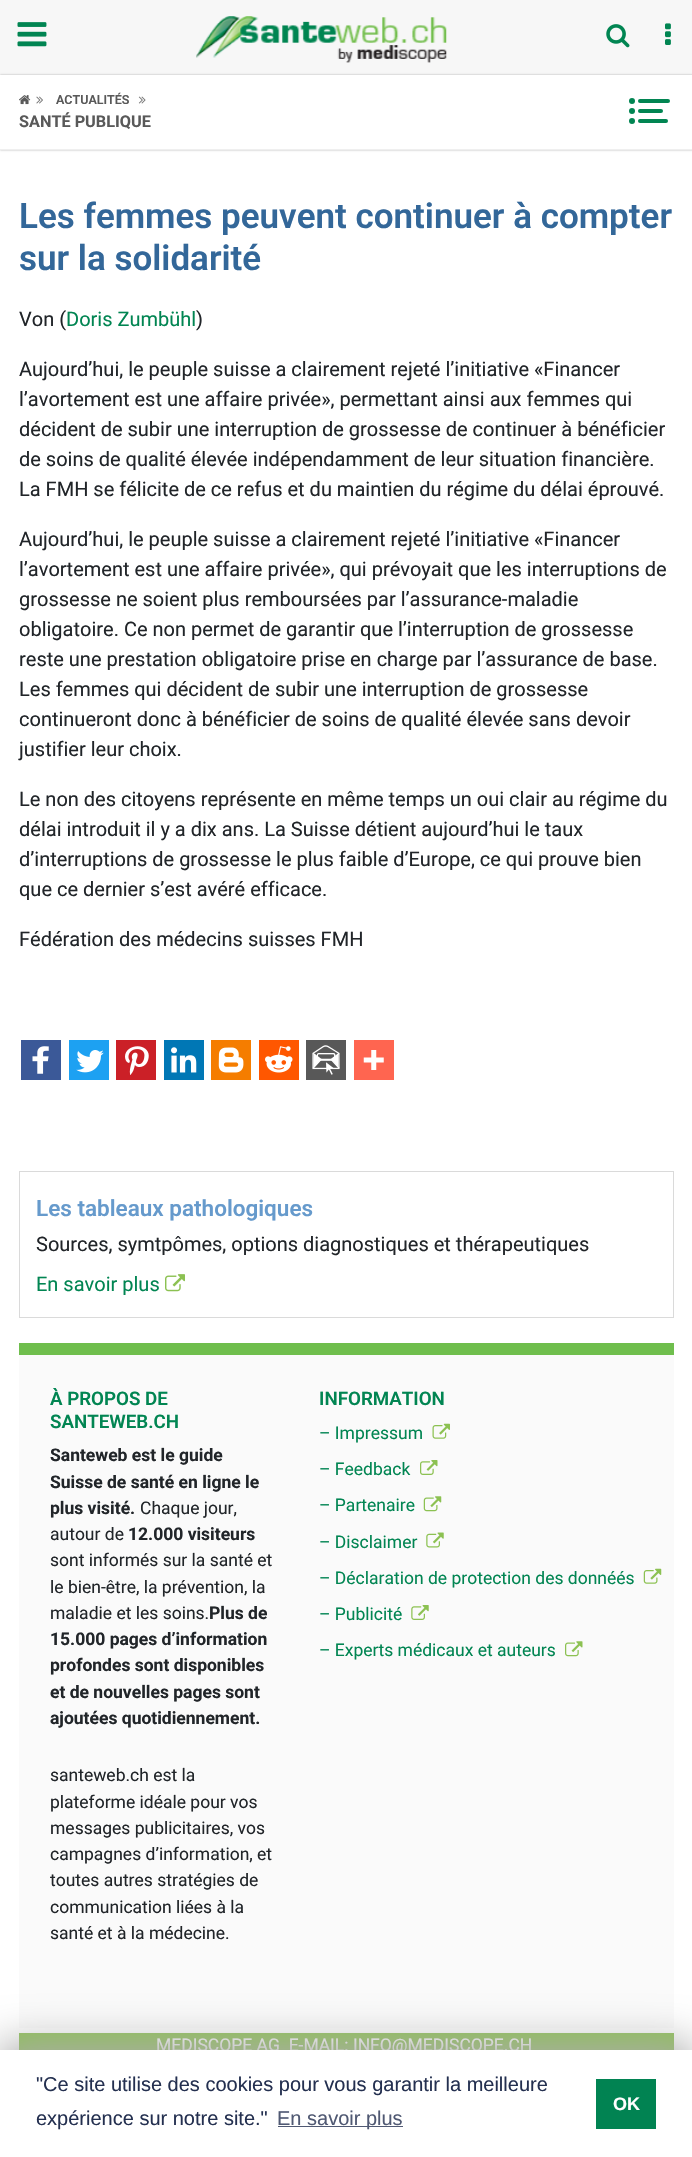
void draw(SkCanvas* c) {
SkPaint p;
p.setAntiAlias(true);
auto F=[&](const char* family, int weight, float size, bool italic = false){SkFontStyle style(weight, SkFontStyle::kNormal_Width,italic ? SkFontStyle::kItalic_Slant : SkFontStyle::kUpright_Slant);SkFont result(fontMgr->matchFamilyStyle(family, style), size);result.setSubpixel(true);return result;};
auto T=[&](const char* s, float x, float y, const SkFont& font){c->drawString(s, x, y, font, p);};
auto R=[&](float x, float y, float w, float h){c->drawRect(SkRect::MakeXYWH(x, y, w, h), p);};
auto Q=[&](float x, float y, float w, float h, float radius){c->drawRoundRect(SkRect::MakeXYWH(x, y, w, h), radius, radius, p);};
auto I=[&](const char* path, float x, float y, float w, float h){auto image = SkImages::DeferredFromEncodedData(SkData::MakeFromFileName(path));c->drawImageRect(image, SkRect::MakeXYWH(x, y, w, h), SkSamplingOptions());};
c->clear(0xffffffff);
p.setColor(0xfff7f7f7);
R(0,0,692,75);
I("1.png",196,16,251,47);
I("2.png",17,22,30,25);
I("3.png",606,24,24,24);
I("4.png",665,23,6,22);
p.setColor(0x4d000000);
p.setMaskFilter(SkMaskFilter::MakeBlur(kNormal_SkBlurStyle, 1));
c->drawRect(SkRect::MakeXYWH(0,75,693,75),p);
p.setMaskFilter(nullptr);
p.setColor(0xffffffff);
R(0,75,692,74);
p.setColor(0xffefefef);
R(0,149,692,1);
I("5.png",19,95,12,10);
I("6.png",36,96,7,8);
auto f1 = F("Roboto",600,12.5);
p.setColor(0xff595959);
T("ACTUALITÉS",56,104,f1);
I("7.png",138,96,8,8);
auto f2 = F("Roboto",700,16.25);
T("SANTÉ PUBLIQUE",19,127,f2);
p.setColor(0xff018552);
Q(638,99,32,4,2);
c->drawCircle(632,101,3,p);
c->drawCircle(632,111,3,p);
Q(638,109,25,4,2);
Q(638,119,30,4,2);
c->drawCircle(632,121,3,p);
auto f3 = F("Roboto",600,35);
p.setColor(0xff336799);
T("Les femmes peuvent continuer à compter",19,228,f3);
T("sur la solidarité",19,270,f3);
auto f4 = F("Roboto",400,20);
p.setColor(0xff212529);
T("Von (",19,326,f4);
p.setColor(0xff018552);
T("Doris Zumbühl",66,326,f4);
p.setColor(0xff212529);
T(")",196,326,f4);
T("Aujourd’hui, le peuple suisse a clairement rejeté l’initiative «Financer",19,376,f4);
T("l’avortement est une affaire privée», permettant ainsi aux femmes qui",19,406,f4);
T("décident de subir une interruption de grossesse de continuer à bénéficier",19,436,f4);
T("de soins de qualité élevée indépendamment de leur situation financière.",19,466,f4);
T("La FMH se félicite de ce refus et du maintien du régime du délai éprouvé.",19,496,f4);
T("Aujourd’hui, le peuple suisse a clairement rejeté l’initiative «Financer",19,546,f4);
T("l’avortement est une affaire privée», qui prévoyait que les interruptions de",19,576,f4);
T("grossesse ne soient plus remboursées par l’assurance-maladie",19,606,f4);
T("obligatoire. Ce non permet de garantir que l’interruption de grossesse",19,636,f4);
T("reste une prestation obligatoire prise en charge par l’assurance de base.",19,666,f4);
T("Les femmes qui décident de subir une interruption de grossesse",19,696,f4);
T("continueront donc à bénéficier de soins de qualité élevée sans devoir",19,726,f4);
T("justifier leur choix.",19,756,f4);
T("Le non des citoyens représente en même temps un oui clair au régime du",19,806,f4);
T("délai introduit il y a dix ans. La Suisse détient aujourd’hui le taux",19,836,f4);
T("d’interruptions de grossesse le plus faible d’Europe, ce qui prouve bien",19,866,f4);
T("que ce dernier s’est avéré efficace.",19,896,f4);
T("Fédération des médecins suisses FMH",19,946,f4);
p.setColor(0xff3b5998);
R(21,1040,40,40);
I("8.png",32,1046,17,28);
p.setColor(0xff1da1f2);
R(69,1040,40,40);
I("9.png",76,1050,28,23);
p.setColor(0xffcb2027);
R(116,1040,40,40);
I("10.png",125,1046,24,29);
p.setColor(0xff0077b5);
R(164,1040,40,40);
I("11.png",171,1047,26,26);
p.setColor(0xfff57d00);
R(211,1040,40,40);
I("12.png",218,1047,26,26);
p.setColor(0xffff5700);
R(259,1040,40,40);
I("13.png",265,1046,28,27);
p.setColor(0xff585858);
R(306,1040,40,40);
I("14.png",312,1045,28,30);
p.setColor(0xffff6550);
R(354,1040,40,40);
I("15.png",363,1050,21,20);
p.setStroke(true);
p.setStrokeWidth(1);
p.setColor(0xffdadada);
c->drawRect(SkRect::MakeXYWH(19.5,1171.5,654,146),p);
auto f5 = F("Roboto",600,22.5);
p.setStroke(false);
p.setColor(0xff669acc);
T("Les tableaux pathologiques",36,1216,f5);
p.setColor(0xff212529);
T("Sources, symtpômes, options diagnostiques et thérapeutiques",36,1251,f4);
p.setColor(0xff018552);
T("En savoir plus",36,1291,f4);
I("16.png",165,1274,20,18);
p.setColor(0xfffafafa);
R(19,1355,655,673);
p.setColor(0xff6fbe4d);
R(19,1343,655,12);
auto f6 = F("Roboto",600,18.75);
p.setColor(0xff018552);
T("À PROPOS DE",50,1405,f6);
T("SANTEWEB.CH",50,1428,f6);
auto f7 = F("Roboto",700,17.5);
p.setColor(0xff212529);
T("Santeweb est le guide",50,1461,f7);
T("Suisse de santé en ligne le",50,1488,f7);
T("plus visité.",50,1514,f7);
auto f8 = F("Roboto",400,17.5);
T("Chaque jour,",140,1514,f8);
T("autour de",50,1540,f8);
T("12.000 visiteurs",128,1540,f7);
T("sont informés sur la santé et",50,1566,f8);
T("le bien-être, la prévention, la",50,1593,f8);
T("maladie et les soins.",50,1619,f8);
T("Plus de",209,1619,f7);
T("15.000 pages d’information",50,1645,f7);
T("profondes sont disponibles",50,1671,f7);
T("et de nouvelles pages sont",50,1698,f7);
T("ajoutées quotidiennement.",50,1724,f7);
T("santeweb.ch est la",50,1781,f8);
T("plateforme idéale pour vos",50,1808,f8);
T("messages publicitaires, vos",50,1834,f8);
T("campagnes d’information, et",50,1860,f8);
T("toutes autres stratégies de",50,1886,f8);
T("communication liées à la",50,1913,f8);
T("santé et à la médecine.",50,1939,f8);
p.setColor(0xff018552);
T("INFORMATION",319,1405,f6);
T("– Impressum",319,1439,f8);
I("17.png",432,1423,18,16);
T("– Feedback",319,1475,f8);
I("18.png",420,1460,18,15);
T("– Partenaire",319,1511,f8);
I("19.png",423,1496,19,16);
T("– Disclaimer",319,1548,f8);
I("20.png",426,1532,18,16);
T("– Déclaration de protection des donnéés",319,1584,f8);
I("21.png",643,1568,19,16);
T("– Publicité",319,1620,f8);
I("22.png",411,1605,18,15);
T("– Experts médicaux et auteurs",319,1656,f8);
I("23.png",565,1641,18,16);
p.setColor(0xff8cc152);
R(19,2033,655,17);
p.setColor(0xffffffff);
T("MEDISCOPE AG  E-MAIL: INFO@MEDISCOPE.CH",156,2051,f8);
p.setColor(0xffababab);
p.setMaskFilter(SkMaskFilter::MakeBlur(kNormal_SkBlurStyle, 21));
c->drawRect(SkRect::MakeXYWH(-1,2043,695,110),p);
p.setMaskFilter(nullptr);
p.setColor(0xffffffff);
R(0,2050,692,107);
auto f9 = F("Liberation Sans",400,20);
p.setColor(0xff243050);
T("\"Ce site utilise des cookies pour vous garantir la meilleure",36,2091,f9);
T("expérience sur notre site.\"",36,2125,f9);
p.setColor(0xff505973);
R(278,2126,125,1);
T("En savoir plus",277,2125,f9);
p.setColor(0xff018352);
R(596,2079,60,50);
auto f10 = F("Liberation Sans",700,18);
p.setColor(0xffffffff);
T("OK",613,2110,f10);
}
